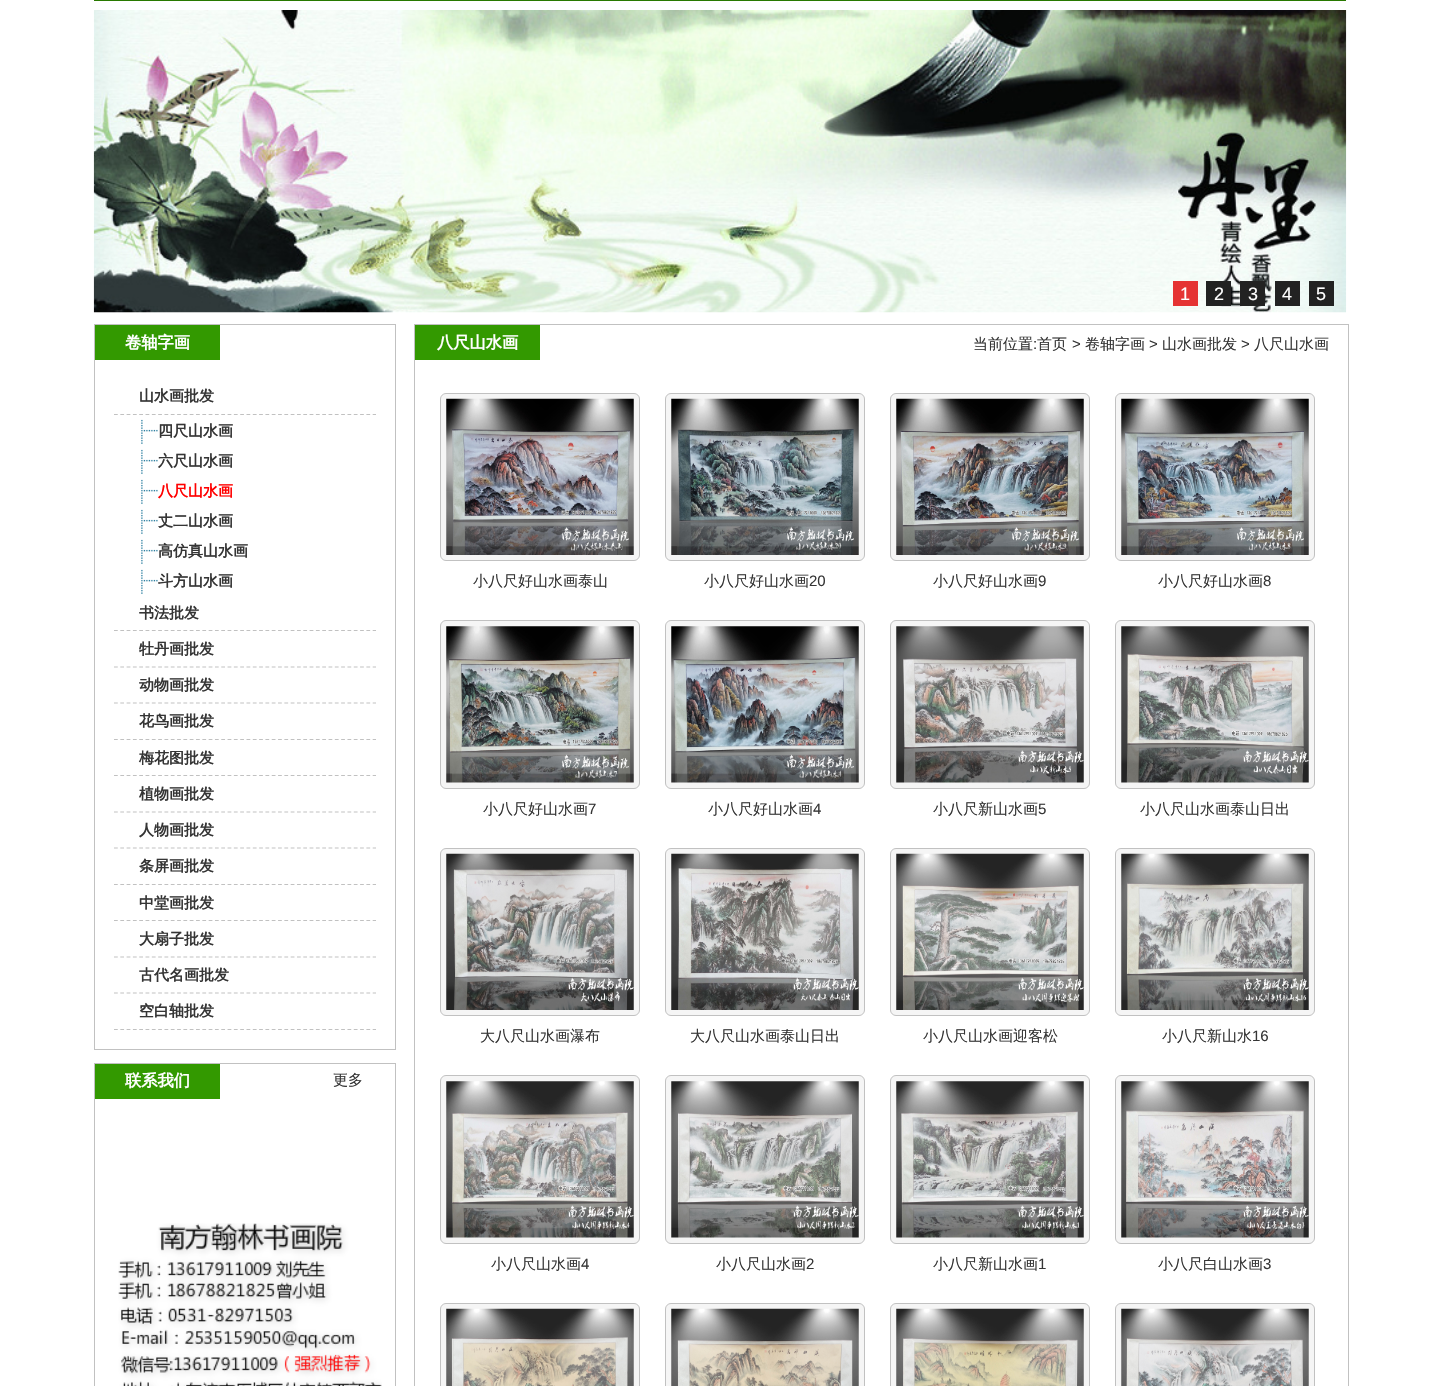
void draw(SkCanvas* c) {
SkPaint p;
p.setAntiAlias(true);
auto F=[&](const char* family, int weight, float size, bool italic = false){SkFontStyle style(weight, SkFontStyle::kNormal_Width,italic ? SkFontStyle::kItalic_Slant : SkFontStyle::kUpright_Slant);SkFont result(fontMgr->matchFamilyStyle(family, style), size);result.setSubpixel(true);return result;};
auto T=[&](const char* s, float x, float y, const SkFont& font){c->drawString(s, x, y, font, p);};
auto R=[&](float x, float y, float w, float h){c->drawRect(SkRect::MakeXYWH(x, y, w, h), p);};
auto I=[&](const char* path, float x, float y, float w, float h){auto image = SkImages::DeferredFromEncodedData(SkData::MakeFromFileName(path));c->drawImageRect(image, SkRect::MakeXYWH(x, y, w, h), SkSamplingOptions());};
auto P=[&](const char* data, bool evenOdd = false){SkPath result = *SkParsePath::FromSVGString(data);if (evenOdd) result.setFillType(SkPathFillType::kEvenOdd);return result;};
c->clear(0xffffffff);
p.setColor(0xff287900);
R(94,0,1252,1);
I("1.png",93,10,1254,303);
p.setColor(0xffe53333);
R(1173,281,25,25);
auto f1 = F("Liberation Sans",400,18);
p.setColor(0xffffffff);
T("1",1180,300,f1);
p.setColor(0xff222222);
R(1206,281,25,25);
p.setColor(0xffffffff);
T("2",1214,300,f1);
p.setColor(0xff222222);
R(1240,281,25,25);
p.setColor(0xffffffff);
T("3",1248,300,f1);
p.setColor(0xff222222);
R(1275,281,25,25);
p.setColor(0xffffffff);
T("4",1282,300,f1);
p.setColor(0xff222222);
R(1309,281,25,25);
p.setColor(0xffffffff);
T("5",1316,300,f1);
p.setStroke(true);
p.setStrokeWidth(1);
p.setColor(0xffc1c1c1);
c->drawRect(SkRect::MakeXYWH(94.5,324.5,301,725),p);
p.setStroke(false);
p.setColor(0xff339900);
R(95,325,125,35);
auto f2 = F("WenQuanYi Zen Hei",700,16.25);
p.setColor(0xffffffff);
T("卷轴字画",125,348,f2);
p.setStroke(true);
p.setStrokeWidth(1.2);
p.setColor(0xffc1c1c1);
p.setPathEffect(SkDashPathEffect::Make({{3.75f,2.56f}}, 0));
c->drawPath(P("M114 414.5h262"),p);
p.setPathEffect(nullptr);
auto f3 = F("WenQuanYi Zen Hei",700,15);
p.setStroke(false);
p.setColor(0xff353535);
T("山水画批发",139,401,f3);
I("2.png",141,419,17,25);
T("四尺山水画",158,436,f3);
I("2.png",141,449,17,25);
T("六尺山水画",158,466,f3);
I("2.png",141,479,17,25);
p.setColor(0xffff0000);
T("八尺山水画",158,496,f3);
I("2.png",141,509,17,25);
p.setColor(0xff353535);
T("丈二山水画",158,526,f3);
I("2.png",141,539,17,25);
T("高仿真山水画",158,556,f3);
I("2.png",141,569,17,25);
T("斗方山水画",158,586,f3);
p.setStroke(true);
p.setColor(0xffc1c1c1);
p.setPathEffect(SkDashPathEffect::Make({{3.75f,2.56f}}, 0));
c->drawPath(P("M114 630.5h262"),p);
p.setPathEffect(nullptr);
p.setStroke(false);
p.setColor(0xff353535);
T("书法批发",139,618,f3);
p.setStroke(true);
p.setColor(0xffc1c1c1);
p.setPathEffect(SkDashPathEffect::Make({{3.75f,2.56f}}, 0));
c->drawPath(P("M114 667h262"),p);
p.setPathEffect(nullptr);
p.setStroke(false);
p.setColor(0xff353535);
T("牡丹画批发",139,654,f3);
p.setStroke(true);
p.setColor(0xffc1c1c1);
p.setPathEffect(SkDashPathEffect::Make({{3.75f,2.56f}}, 0));
c->drawPath(P("M114 703h262"),p);
p.setPathEffect(nullptr);
p.setStroke(false);
p.setColor(0xff353535);
T("动物画批发",139,690,f3);
p.setStroke(true);
p.setColor(0xffc1c1c1);
p.setPathEffect(SkDashPathEffect::Make({{3.75f,2.56f}}, 0));
c->drawPath(P("M114 739.5h262"),p);
p.setPathEffect(nullptr);
p.setStroke(false);
p.setColor(0xff353535);
T("花鸟画批发",139,726,f3);
p.setStroke(true);
p.setColor(0xffc1c1c1);
p.setPathEffect(SkDashPathEffect::Make({{3.75f,2.56f}}, 0));
c->drawPath(P("M114 775.5h262"),p);
p.setPathEffect(nullptr);
p.setStroke(false);
p.setColor(0xff353535);
T("梅花图批发",139,763,f3);
p.setStroke(true);
p.setColor(0xffc1c1c1);
p.setPathEffect(SkDashPathEffect::Make({{3.75f,2.56f}}, 0));
c->drawPath(P("M114 812h262"),p);
p.setPathEffect(nullptr);
p.setStroke(false);
p.setColor(0xff353535);
T("植物画批发",139,799,f3);
p.setStroke(true);
p.setColor(0xffc1c1c1);
p.setPathEffect(SkDashPathEffect::Make({{3.75f,2.56f}}, 0));
c->drawPath(P("M114 848h262"),p);
p.setPathEffect(nullptr);
p.setStroke(false);
p.setColor(0xff353535);
T("人物画批发",139,835,f3);
p.setStroke(true);
p.setColor(0xffc1c1c1);
p.setPathEffect(SkDashPathEffect::Make({{3.75f,2.56f}}, 0));
c->drawPath(P("M114 884.5h262"),p);
p.setPathEffect(nullptr);
p.setStroke(false);
p.setColor(0xff353535);
T("条屏画批发",139,871,f3);
p.setStroke(true);
p.setColor(0xffc1c1c1);
p.setPathEffect(SkDashPathEffect::Make({{3.75f,2.56f}}, 0));
c->drawPath(P("M114 920.5h262"),p);
p.setPathEffect(nullptr);
p.setStroke(false);
p.setColor(0xff353535);
T("中堂画批发",139,908,f3);
p.setStroke(true);
p.setColor(0xffc1c1c1);
p.setPathEffect(SkDashPathEffect::Make({{3.75f,2.56f}}, 0));
c->drawPath(P("M114 957h262"),p);
p.setPathEffect(nullptr);
p.setStroke(false);
p.setColor(0xff353535);
T("大扇子批发",139,944,f3);
p.setStroke(true);
p.setColor(0xffc1c1c1);
p.setPathEffect(SkDashPathEffect::Make({{3.75f,2.56f}}, 0));
c->drawPath(P("M114 993h262"),p);
p.setPathEffect(nullptr);
p.setStroke(false);
p.setColor(0xff353535);
T("古代名画批发",139,980,f3);
p.setStroke(true);
p.setColor(0xffc1c1c1);
p.setPathEffect(SkDashPathEffect::Make({{3.75f,2.56f}}, 0));
c->drawPath(P("M114 1029.5h262"),p);
p.setPathEffect(nullptr);
p.setStroke(false);
p.setColor(0xff353535);
T("空白轴批发",139,1016,f3);
p.setStroke(true);
p.setStrokeWidth(1);
p.setColor(0xffc1c1c1);
c->drawRect(SkRect::MakeXYWH(94.5,1063.5,301,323),p);
p.setStroke(false);
p.setColor(0xff339900);
R(95,1064,125,35);
p.setColor(0xffffffff);
T("联系我们",125,1086,f2);
auto f4 = F("WenQuanYi Zen Hei",500,15);
p.setColor(0xff353535);
T("更多",333,1085,f4);
I("3.png",118,1223,264,163);
p.setStroke(true);
p.setColor(0xffc1c1c1);
c->drawRect(SkRect::MakeXYWH(414.5,324.5,934,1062),p);
p.setStroke(false);
p.setColor(0xff339900);
R(415,325,125,35);
p.setColor(0xffffffff);
T("八尺山水画",437,348,f2);
p.setColor(0xff353535);
T("当前位置",973,349,f4);
auto f5 = F("Liberation Sans",400,15);
T(":",1033,349,f5);
T("首页",1037,349,f4);
T(">",1072,349,f5);
T("卷轴字画",1085,349,f4);
T(">",1149,349,f5);
T("山水画批发",1162,349,f4);
T(">",1241,349,f5);
T("八尺山水画",1254,349,f4);
p.setColor(0xfff5f5f5);
c->drawRoundRect(SkRect::MakeXYWH(440.5,393.5,199,167),5.5,5.5,p);
p.setStroke(true);
p.setColor(0xffc1c1c1);
c->drawRoundRect(SkRect::MakeXYWH(440.5,393.5,199,167),5.5,5.5,p);
I("4.png",446,398,188,157);
p.setStroke(false);
p.setColor(0xff353535);
T("小八尺好山水画泰山",473,586,f4);
p.setColor(0xfff5f5f5);
c->drawRoundRect(SkRect::MakeXYWH(665.5,393.5,199,167),5.5,5.5,p);
p.setStroke(true);
p.setColor(0xffc1c1c1);
c->drawRoundRect(SkRect::MakeXYWH(665.5,393.5,199,167),5.5,5.5,p);
I("5.png",671,398,188,157);
p.setStroke(false);
p.setColor(0xff353535);
T("小八尺好山水画",704,586,f4);
T("20",809,586,f5);
p.setColor(0xfff5f5f5);
c->drawRoundRect(SkRect::MakeXYWH(890.5,393.5,199,167),5.5,5.5,p);
p.setStroke(true);
p.setColor(0xffc1c1c1);
c->drawRoundRect(SkRect::MakeXYWH(890.5,393.5,199,167),5.5,5.5,p);
I("6.png",896,398,188,157);
p.setStroke(false);
p.setColor(0xff353535);
T("小八尺好山水画",933,586,f4);
T("9",1038,586,f5);
p.setColor(0xfff5f5f5);
c->drawRoundRect(SkRect::MakeXYWH(1115.5,393.5,199,167),5.5,5.5,p);
p.setStroke(true);
p.setColor(0xffc1c1c1);
c->drawRoundRect(SkRect::MakeXYWH(1115.5,393.5,199,167),5.5,5.5,p);
I("7.png",1121,398,188,157);
p.setStroke(false);
p.setColor(0xff353535);
T("小八尺好山水画",1158,586,f4);
T("8",1263,586,f5);
p.setColor(0xfff5f5f5);
c->drawRoundRect(SkRect::MakeXYWH(440.5,620.5,199,168),5.5,5.5,p);
p.setStroke(true);
p.setColor(0xffc1c1c1);
c->drawRoundRect(SkRect::MakeXYWH(440.5,620.5,199,168),5.5,5.5,p);
I("8.png",446,626,188,157);
p.setStroke(false);
p.setColor(0xff353535);
T("小八尺好山水画",483,814,f4);
T("7",588,814,f5);
p.setColor(0xfff5f5f5);
c->drawRoundRect(SkRect::MakeXYWH(665.5,620.5,199,168),5.5,5.5,p);
p.setStroke(true);
p.setColor(0xffc1c1c1);
c->drawRoundRect(SkRect::MakeXYWH(665.5,620.5,199,168),5.5,5.5,p);
I("9.png",671,626,188,157);
p.setStroke(false);
p.setColor(0xff353535);
T("小八尺好山水画",708,814,f4);
T("4",813,814,f5);
p.setColor(0xfff5f5f5);
c->drawRoundRect(SkRect::MakeXYWH(890.5,620.5,199,168),5.5,5.5,p);
p.setStroke(true);
p.setColor(0xffc1c1c1);
c->drawRoundRect(SkRect::MakeXYWH(890.5,620.5,199,168),5.5,5.5,p);
I("10.png",896,626,188,157);
p.setStroke(false);
p.setColor(0xff353535);
T("小八尺新山水画",933,814,f4);
T("5",1038,814,f5);
p.setColor(0xfff5f5f5);
c->drawRoundRect(SkRect::MakeXYWH(1115.5,620.5,199,168),5.5,5.5,p);
p.setStroke(true);
p.setColor(0xffc1c1c1);
c->drawRoundRect(SkRect::MakeXYWH(1115.5,620.5,199,168),5.5,5.5,p);
I("11.png",1121,626,188,157);
p.setStroke(false);
p.setColor(0xff353535);
T("小八尺山水画泰山日出",1140,814,f4);
p.setColor(0xfff5f5f5);
c->drawRoundRect(SkRect::MakeXYWH(440.5,848.5,199,167),5.5,5.5,p);
p.setStroke(true);
p.setColor(0xffc1c1c1);
c->drawRoundRect(SkRect::MakeXYWH(440.5,848.5,199,167),5.5,5.5,p);
I("12.png",446,853,188,157);
p.setStroke(false);
p.setColor(0xff353535);
T("大八尺山水画瀑布",480,1041,f4);
p.setColor(0xfff5f5f5);
c->drawRoundRect(SkRect::MakeXYWH(665.5,848.5,199,167),5.5,5.5,p);
p.setStroke(true);
p.setColor(0xffc1c1c1);
c->drawRoundRect(SkRect::MakeXYWH(665.5,848.5,199,167),5.5,5.5,p);
I("13.png",671,853,188,157);
p.setStroke(false);
p.setColor(0xff353535);
T("大八尺山水画泰山日出",690,1041,f4);
p.setColor(0xfff5f5f5);
c->drawRoundRect(SkRect::MakeXYWH(890.5,848.5,199,167),5.5,5.5,p);
p.setStroke(true);
p.setColor(0xffc1c1c1);
c->drawRoundRect(SkRect::MakeXYWH(890.5,848.5,199,167),5.5,5.5,p);
I("14.png",896,853,188,157);
p.setStroke(false);
p.setColor(0xff353535);
T("小八尺山水画迎客松",923,1041,f4);
p.setColor(0xfff5f5f5);
c->drawRoundRect(SkRect::MakeXYWH(1115.5,848.5,199,167),5.5,5.5,p);
p.setStroke(true);
p.setColor(0xffc1c1c1);
c->drawRoundRect(SkRect::MakeXYWH(1115.5,848.5,199,167),5.5,5.5,p);
I("15.png",1121,853,188,157);
p.setStroke(false);
p.setColor(0xff353535);
T("小八尺新山水",1162,1041,f4);
T("16",1252,1041,f5);
p.setColor(0xfff5f5f5);
c->drawRoundRect(SkRect::MakeXYWH(440.5,1075.5,199,168),5.5,5.5,p);
p.setStroke(true);
p.setColor(0xffc1c1c1);
c->drawRoundRect(SkRect::MakeXYWH(440.5,1075.5,199,168),5.5,5.5,p);
I("16.png",446,1081,188,157);
p.setStroke(false);
p.setColor(0xff353535);
T("小八尺山水画",491,1269,f4);
T("4",581,1269,f5);
p.setColor(0xfff5f5f5);
c->drawRoundRect(SkRect::MakeXYWH(665.5,1075.5,199,168),5.5,5.5,p);
p.setStroke(true);
p.setColor(0xffc1c1c1);
c->drawRoundRect(SkRect::MakeXYWH(665.5,1075.5,199,168),5.5,5.5,p);
I("17.png",671,1081,188,157);
p.setStroke(false);
p.setColor(0xff353535);
T("小八尺山水画",716,1269,f4);
T("2",806,1269,f5);
p.setColor(0xfff5f5f5);
c->drawRoundRect(SkRect::MakeXYWH(890.5,1075.5,199,168),5.5,5.5,p);
p.setStroke(true);
p.setColor(0xffc1c1c1);
c->drawRoundRect(SkRect::MakeXYWH(890.5,1075.5,199,168),5.5,5.5,p);
I("18.png",896,1081,188,157);
p.setStroke(false);
p.setColor(0xff353535);
T("小八尺新山水画",933,1269,f4);
T("1",1038,1269,f5);
p.setColor(0xfff5f5f5);
c->drawRoundRect(SkRect::MakeXYWH(1115.5,1075.5,199,168),5.5,5.5,p);
p.setStroke(true);
p.setColor(0xffc1c1c1);
c->drawRoundRect(SkRect::MakeXYWH(1115.5,1075.5,199,168),5.5,5.5,p);
I("19.png",1121,1081,188,157);
p.setStroke(false);
p.setColor(0xff353535);
T("小八尺白山水画",1158,1269,f4);
T("3",1263,1269,f5);
p.setColor(0xfff5f5f5);
c->drawRoundRect(SkRect::MakeXYWH(440.5,1303.5,199,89),5.5,5.5,p);
p.setStroke(true);
p.setColor(0xffc1c1c1);
c->drawRoundRect(SkRect::MakeXYWH(440.5,1303.5,199,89),5.5,5.5,p);
I("20.png",446,1308,188,78);
p.setStroke(false);
p.setColor(0xfff5f5f5);
c->drawRoundRect(SkRect::MakeXYWH(665.5,1303.5,199,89),5.5,5.5,p);
p.setStroke(true);
p.setColor(0xffc1c1c1);
c->drawRoundRect(SkRect::MakeXYWH(665.5,1303.5,199,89),5.5,5.5,p);
I("21.png",671,1308,188,78);
p.setStroke(false);
p.setColor(0xfff5f5f5);
c->drawRoundRect(SkRect::MakeXYWH(890.5,1303.5,199,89),5.5,5.5,p);
p.setStroke(true);
p.setColor(0xffc1c1c1);
c->drawRoundRect(SkRect::MakeXYWH(890.5,1303.5,199,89),5.5,5.5,p);
I("22.png",896,1308,188,78);
p.setStroke(false);
p.setColor(0xfff5f5f5);
c->drawRoundRect(SkRect::MakeXYWH(1115.5,1303.5,199,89),5.5,5.5,p);
p.setStroke(true);
p.setColor(0xffc1c1c1);
c->drawRoundRect(SkRect::MakeXYWH(1115.5,1303.5,199,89),5.5,5.5,p);
I("23.png",1121,1308,188,78);
}
